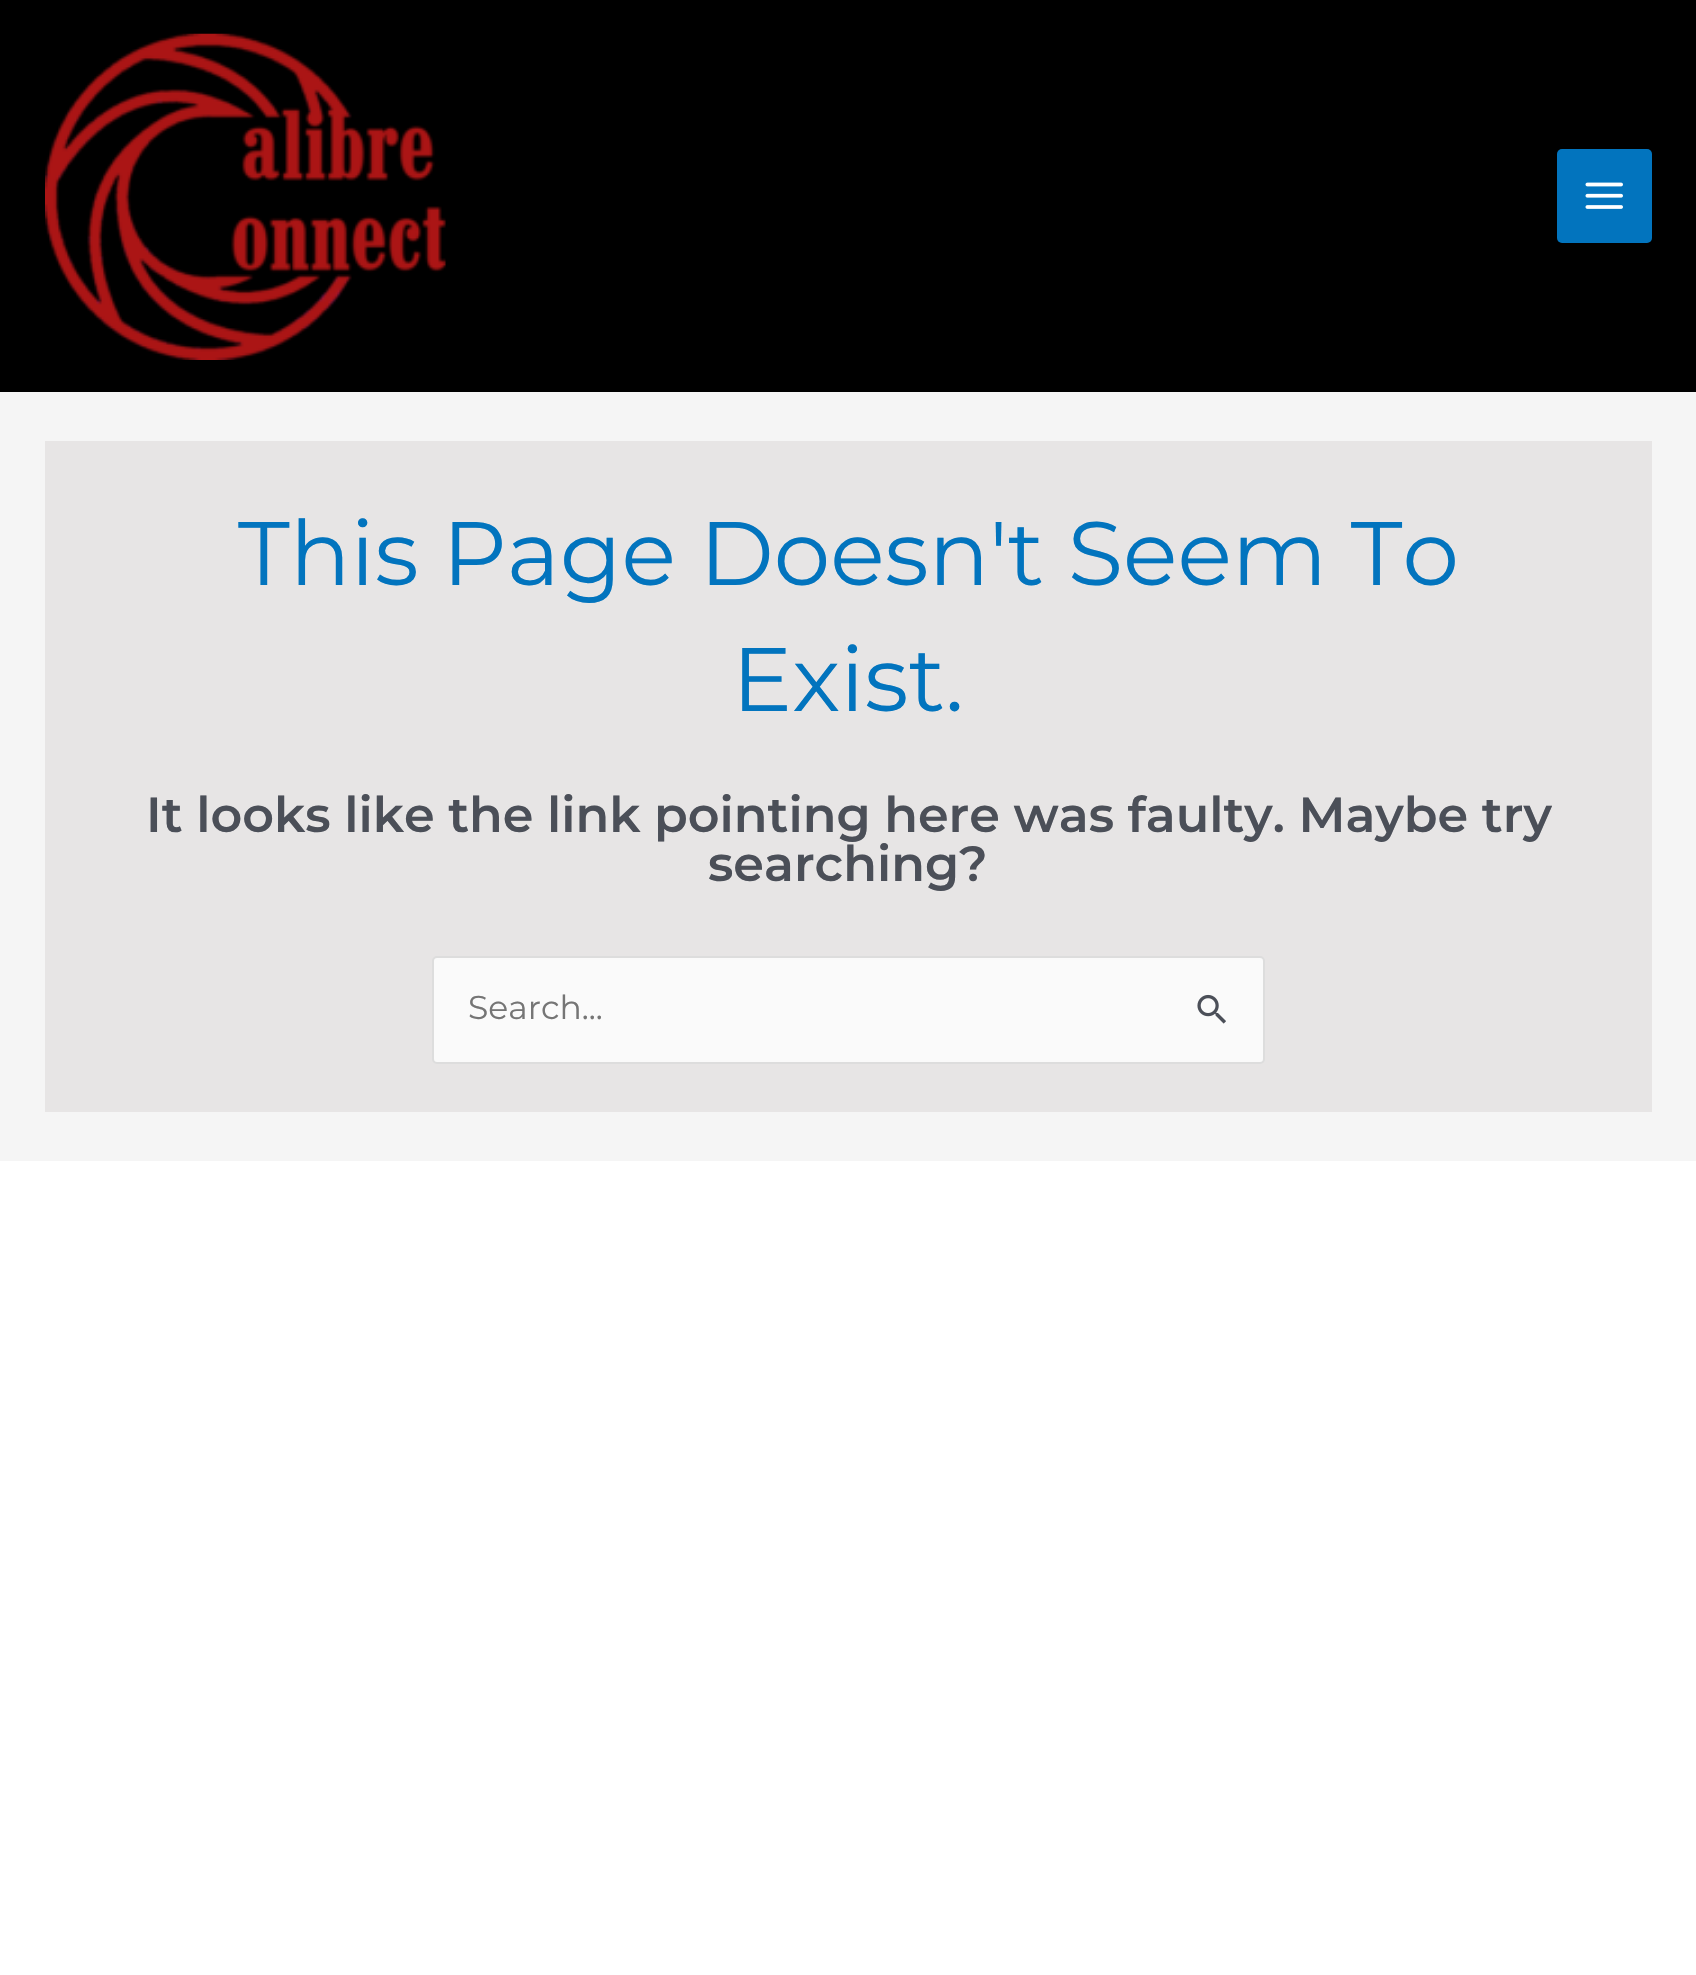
void draw(SkCanvas* c) {
SkPaint p;
p.setAntiAlias(true);
auto F=[&](const char* family, int weight, float size, bool italic = false){SkFontStyle style(weight, SkFontStyle::kNormal_Width,italic ? SkFontStyle::kItalic_Slant : SkFontStyle::kUpright_Slant);SkFont result(fontMgr->matchFamilyStyle(family, style), size);result.setSubpixel(true);return result;};
auto T=[&](const char* s, float x, float y, const SkFont& font){c->drawString(s, x, y, font, p);};
auto R=[&](float x, float y, float w, float h){c->drawRect(SkRect::MakeXYWH(x, y, w, h), p);};
auto Q=[&](float x, float y, float w, float h, float radius){c->drawRoundRect(SkRect::MakeXYWH(x, y, w, h), radius, radius, p);};
auto I=[&](const char* path, float x, float y, float w, float h){auto image = SkImages::DeferredFromEncodedData(SkData::MakeFromFileName(path));c->drawImageRect(image, SkRect::MakeXYWH(x, y, w, h), SkSamplingOptions());};
c->clear(0xfff5f5f5);
p.setColor(0xff000000);
R(0,0,1696,392);
I("1.png",45,33,401,327);
p.setColor(0xff0274be);
Q(1557,149,95,94,5);
I("2.png",1585,182,38,27);
p.setColor(0xffe7e5e5);
R(45,441,1607,671);
auto f1 = F("Montserrat",400,90);
p.setColor(0xff0274be);
T("This Page Doesn't Seem To",238,585,f1);
T("Exist.",732,711,f1);
auto f2 = F("Montserrat",600,49.25);
p.setColor(0xff4b4f58);
T("It looks like the link pointing here was faulty. Maybe try",146,832,f2);
T("searching?",708,881,f2);
p.setColor(0xfffafafa);
c->drawRoundRect(SkRect::MakeXYWH(433,957,831,106),4,4,p);
p.setStroke(true);
p.setStrokeWidth(2);
p.setColor(0xffdddddd);
c->drawRoundRect(SkRect::MakeXYWH(433,957,831,106),4,4,p);
auto f3 = F("Montserrat",400,33);
p.setStroke(false);
p.setColor(0xff757575);
T("Search...",468,1019,f3);
I("3.png",1197,994,29,30);
p.setColor(0xffffffff);
R(0,1161,1696,814);
}
